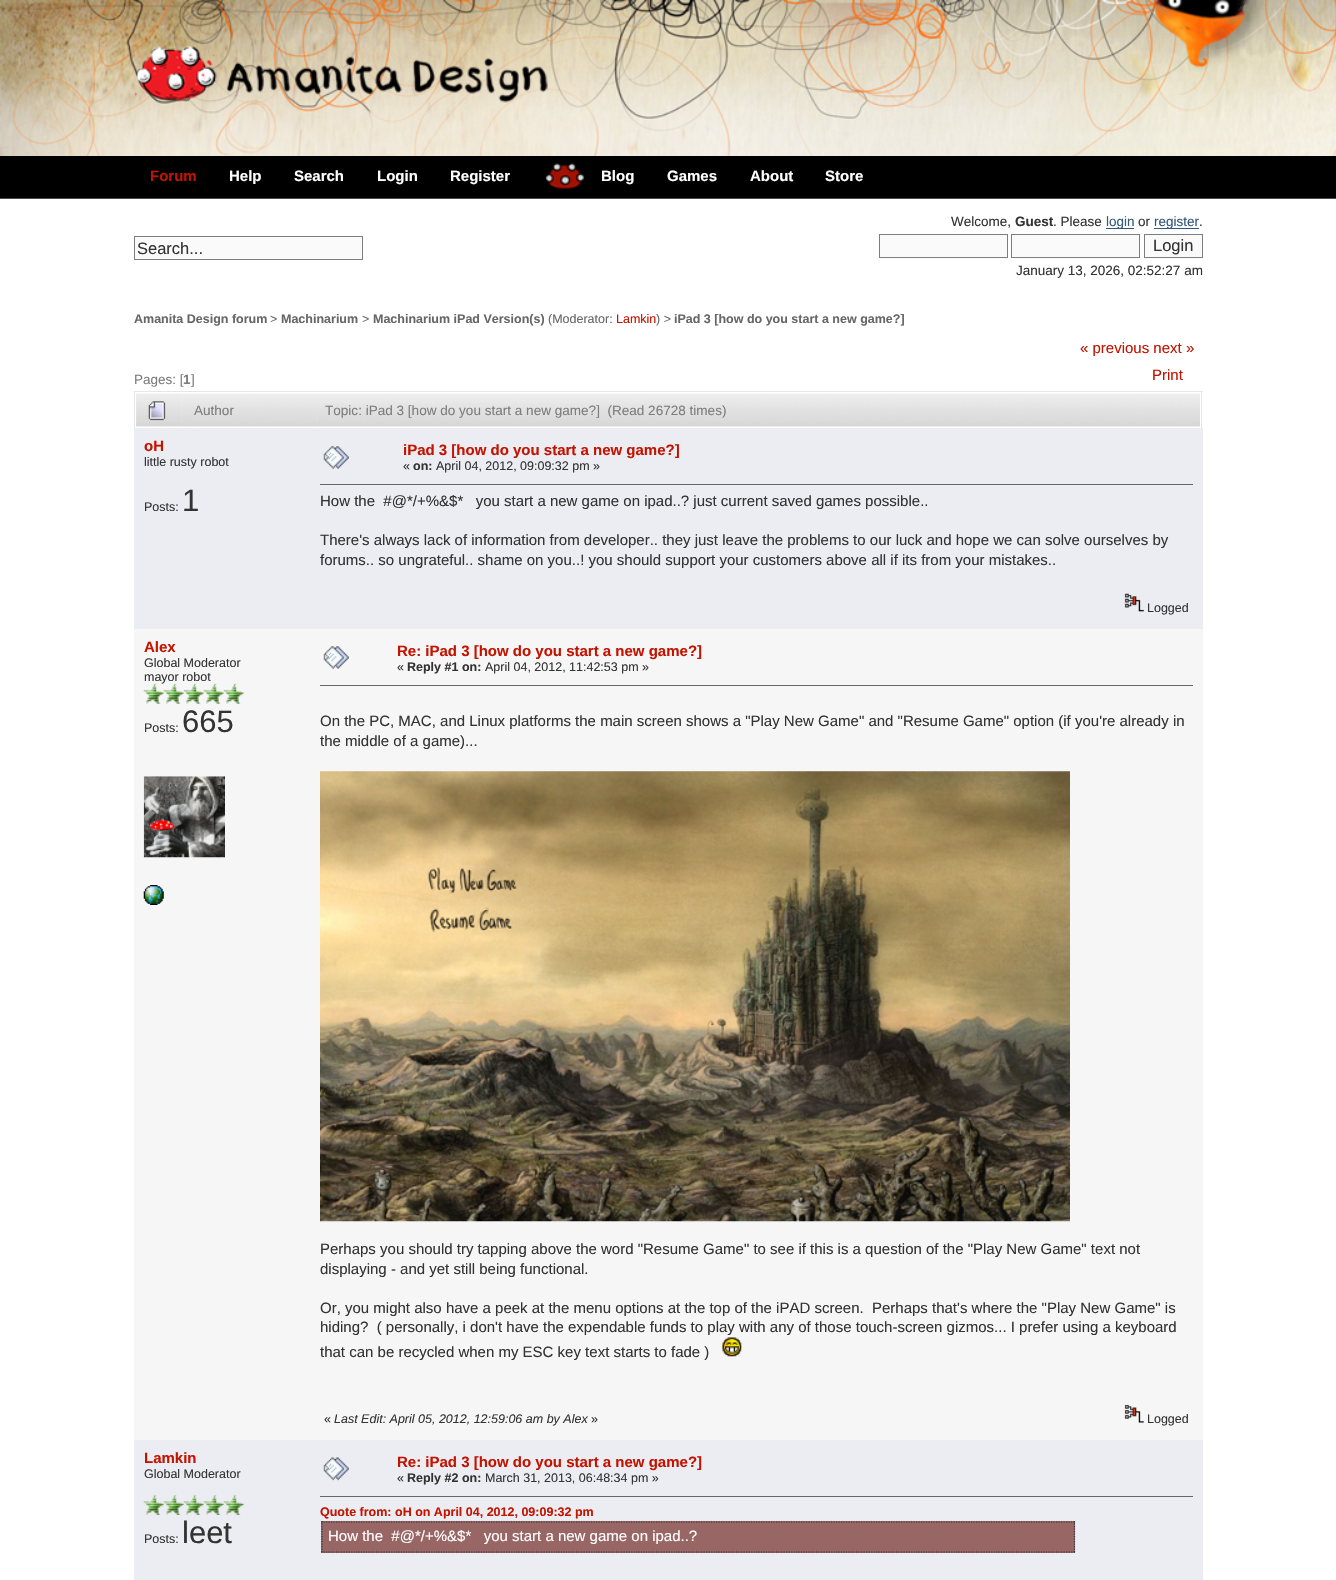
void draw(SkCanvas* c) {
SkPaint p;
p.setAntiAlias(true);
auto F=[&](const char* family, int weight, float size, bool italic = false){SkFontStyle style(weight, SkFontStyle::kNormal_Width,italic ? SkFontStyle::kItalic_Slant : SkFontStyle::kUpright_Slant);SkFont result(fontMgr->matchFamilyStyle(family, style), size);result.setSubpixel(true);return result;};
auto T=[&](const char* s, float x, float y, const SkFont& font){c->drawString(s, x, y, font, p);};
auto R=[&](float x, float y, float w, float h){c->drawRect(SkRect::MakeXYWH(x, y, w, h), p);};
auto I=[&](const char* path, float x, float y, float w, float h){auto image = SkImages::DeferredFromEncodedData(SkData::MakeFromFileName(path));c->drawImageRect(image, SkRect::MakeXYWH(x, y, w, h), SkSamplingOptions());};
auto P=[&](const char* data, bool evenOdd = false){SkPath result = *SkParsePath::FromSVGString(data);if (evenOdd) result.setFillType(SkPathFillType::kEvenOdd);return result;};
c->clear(0xffffffff);
I("1.png",0,0,1336,156);
I("2.png",134,46,414,57);
p.setColor(0xff000000);
R(0,156,1336,42);
p.setColor(0xff4c4c4c);
R(0,198,1336,1);
auto f1 = F("Liberation Sans",700,15);
p.setColor(0xffc31401);
T("Forum",150,181,f1);
p.setColor(0xffffffff);
T("Help",229,181,f1);
T("Search",294,181,f1);
T("Login",377,181,f1);
T("Register",450,181,f1);
I("3.png",545,163,40,26);
T("Blog",601,181,f1);
T("Games",667,181,f1);
T("About",750,181,f1);
T("Store",825,181,f1);
p.setColor(0xfffafafa);
c->drawRect(SkRect::MakeXYWH(134.5,236.5,228,23),p);
p.setStroke(true);
p.setStrokeWidth(1);
p.setColor(0xff7d7d7d);
c->drawRect(SkRect::MakeXYWH(134.5,236.5,228,23),p);
auto f2 = F("Liberation Sans",400,16.5);
p.setStroke(false);
p.setColor(0xff333333);
T("Search...",137,254,f2);
auto f3 = F("Liberation Sans",400,13.5);
T("Welcome,",951,226,f3);
auto f4 = F("Liberation Sans",700,13.5);
T("Guest",1015,226,f4);
T(". Please",1053,226,f3);
p.setColor(0xff33587a);
R(1106,228,28,1);
T("login",1106,226,f3);
p.setColor(0xff333333);
T("or",1138,226,f3);
p.setColor(0xff33587a);
R(1154,228,45,1);
T("register",1154,226,f3);
p.setColor(0xff333333);
T(".",1199,226,f3);
p.setColor(0xfffafafa);
c->drawRect(SkRect::MakeXYWH(879.5,234.5,128,23),p);
p.setStroke(true);
p.setColor(0xff7d7d7d);
c->drawRect(SkRect::MakeXYWH(879.5,234.5,128,23),p);
p.setStroke(false);
p.setColor(0xfffafafa);
c->drawRect(SkRect::MakeXYWH(1011.5,234.5,128,23),p);
p.setStroke(true);
p.setColor(0xff7d7d7d);
c->drawRect(SkRect::MakeXYWH(1011.5,234.5,128,23),p);
p.setStroke(false);
p.setColor(0xfffafafa);
c->drawRect(SkRect::MakeXYWH(1144.5,234.5,58,23),p);
p.setStroke(true);
p.setColor(0xff7d7d7d);
c->drawRect(SkRect::MakeXYWH(1144.5,234.5,58,23),p);
p.setStroke(false);
p.setColor(0xff333333);
T("Login",1153,251,f2);
T("January 13, 2026, 02:52:27 am",1016,275,f3);
auto f5 = F("Liberation Sans",700,12.5);
p.setColor(0xff666666);
T("Amanita Design forum",134,323,f5);
auto f6 = F("Liberation Sans",400,12.5);
T(">",270,323,f6);
T("Machinarium",281,323,f5);
T(">",362,323,f6);
T("Machinarium iPad Version(s)",373,323,f5);
T("(Moderator:",548,323,f6);
p.setColor(0xffc31401);
T("Lamkin",616,323,f6);
p.setColor(0xff666666);
T(") >",656,323,f6);
T("iPad 3 [how do you start a new game?]",674,323,f5);
p.setColor(0xff7d7d7d);
T("Pages: [",134,384,f3);
T("1",183,384,f4);
T("]",191,384,f3);
auto f7 = F("Liberation Sans",400,15);
p.setColor(0xffc31401);
T("« previous next »",1080,353,f7);
T("Print",1152,380,f7);
p.setColor(0xffe6e6e6);
R(134,391,1069,1);
R(1201,391,1,37);
R(134,391,1,37);
I("4.png",136,393,46,34);
I("5.png",148,401,18,20);
I("6.png",181,393,137,34);
auto f8 = F("Liberation Sans",400,13.55);
p.setColor(0xff7d7d7d);
T("Author",194,415,f8);
I("7.png",317,393,883,34);
T("Topic: iPad 3 [how do you start a new game?]  (Read 26728 times)",325,415,f8);
p.setColor(0xffecedf3);
R(134,428,1069,201);
p.setColor(0xffc31401);
T("oH",144,451,f1);
p.setColor(0xff333333);
T("little rusty robot",144,466,f6);
T("Posts:",144,511,f6);
auto f9 = F("Liberation Sans",400,31);
T("1",182,511,f9);
I("8.png",323,446,26,23);
p.setColor(0xffc31401);
T("iPad 3 [how do you start a new game?]",403,455,f1);
p.setColor(0xff333333);
T("«",403,470,f6);
T("on:",413,470,f5);
T("April 04, 2012, 09:09:32 pm »",436,470,f6);
p.setColor(0xff666666);
R(320,484,873,1);
p.setColor(0xff333333);
T("How the  #@*/+%&$*   you start a new game on ipad..? just current saved games possible..",320,506,f7);
T("There's always lack of information from developer.. they just leave the problems to our luck and hope we can solve ourselves by",320,545,f7);
T("forums.. so ungrateful.. shame on you..! you should support your customers above all if its from your mistakes..",320,565,f7);
I("9.png",1124,593,20,19);
T("Logged",1147,612,f6);
p.setColor(0xfff6f6f6);
R(134,629,1069,811);
p.setColor(0xffc31401);
T("Alex",144,652,f1);
p.setColor(0xff333333);
T("Global Moderator",144,667,f6);
T("mayor robot",144,681,f6);
I("10.png",143,683,21,21);
I("11.png",163,683,21,21);
I("12.png",183,683,21,21);
I("12.png",203,683,21,21);
I("12.png",223,683,21,21);
T("Posts:",144,732,f6);
T("665",182,732,f9);
I("13.png",143,776,82,82);
I("14.png",143,885,21,20);
I("15.png",323,646,26,23);
p.setColor(0xffc31401);
T("Re: iPad 3 [how do you start a new game?]",397,656,f1);
p.setColor(0xff333333);
T("«",397,671,f6);
T("Reply #1 on:",407,671,f5);
T("April 04, 2012, 11:42:53 pm »",485,671,f6);
p.setColor(0xff666666);
R(320,685,873,1);
p.setColor(0xff333333);
T("On the PC, MAC, and Linux platforms the main screen shows a \"Play New Game\" and \"Resume Game\" option (if you're already in",320,726,f7);
T("the middle of a game)...",320,746,f7);
I("16.png",320,771,750,451);
T("Perhaps you should try tapping above the word \"Resume Game\" to see if this is a question of the \"Play New Game\" text not",320,1254,f7);
T("displaying - and yet still being functional.",320,1274,f7);
T("Or, you might also have a peek at the menu options at the top of the iPAD screen.  Perhaps that's where the \"Play New Game\" is",320,1313,f7);
T("hiding?  ( personally, i don't have the expendable funds to play with any of those touch-screen gizmos... I prefer using a keyboard",320,1332,f7);
T("that can be recycled when my ESC key text starts to fade )",320,1357,f7);
I("17.png",722,1337,20,20);
T("«",324,1423,f6);
auto f10 = F("Liberation Sans",400,12.5,true);
T("Last Edit: April 05, 2012, 12:59:06 am by Alex",334,1423,f10);
T("»",591,1423,f6);
I("18.png",1124,1404,20,19);
T("Logged",1147,1423,f6);
p.setColor(0xffecedf3);
R(134,1440,1069,140);
p.setColor(0xffc31401);
T("Lamkin",144,1463,f1);
p.setColor(0xff333333);
T("Global Moderator",144,1478,f6);
I("19.png",143,1495,21,20);
I("20.png",163,1495,21,20);
I("20.png",183,1495,21,20);
I("20.png",203,1495,21,20);
I("20.png",223,1495,21,20);
T("Posts:",144,1543,f6);
T("leet",182,1543,f9);
I("21.png",323,1457,26,24);
p.setColor(0xffc31401);
T("Re: iPad 3 [how do you start a new game?]",397,1467,f1);
p.setColor(0xff333333);
T("«",397,1482,f6);
T("Reply #2 on:",407,1482,f5);
T("March 31, 2013, 06:48:34 pm »",485,1482,f6);
p.setColor(0xff666666);
R(320,1496,873,1);
p.setColor(0xffc31401);
T("Quote from: oH on April 04, 2012, 09:09:32 pm",320,1516,f5);
p.setColor(0xff996666);
R(321,1521,754,32);
p.setStroke(true);
p.setStrokeWidth(1.2);
p.setColor(0xff333333);
p.setPathEffect(SkDashPathEffect::Make({{1.25f,1.25f}}, 0));
c->drawPath(P("M321 1522h754"),p);
p.setPathEffect(nullptr);
p.setPathEffect(SkDashPathEffect::Make({{1.25f,1.25f}}, 0));
c->drawPath(P("M1074.5 1521v31.5"),p);
p.setPathEffect(nullptr);
p.setPathEffect(SkDashPathEffect::Make({{1.25f,1.25f}}, 0));
c->drawPath(P("M321 1552h754"),p);
p.setPathEffect(nullptr);
p.setPathEffect(SkDashPathEffect::Make({{1.25f,1.25f}}, 0));
c->drawPath(P("M322 1521v31.5"),p);
p.setPathEffect(nullptr);
p.setStroke(false);
p.setColor(0xffffffff);
T("How the  #@*/+%&$*   you start a new game on ipad..?",328,1541,f7);
}
